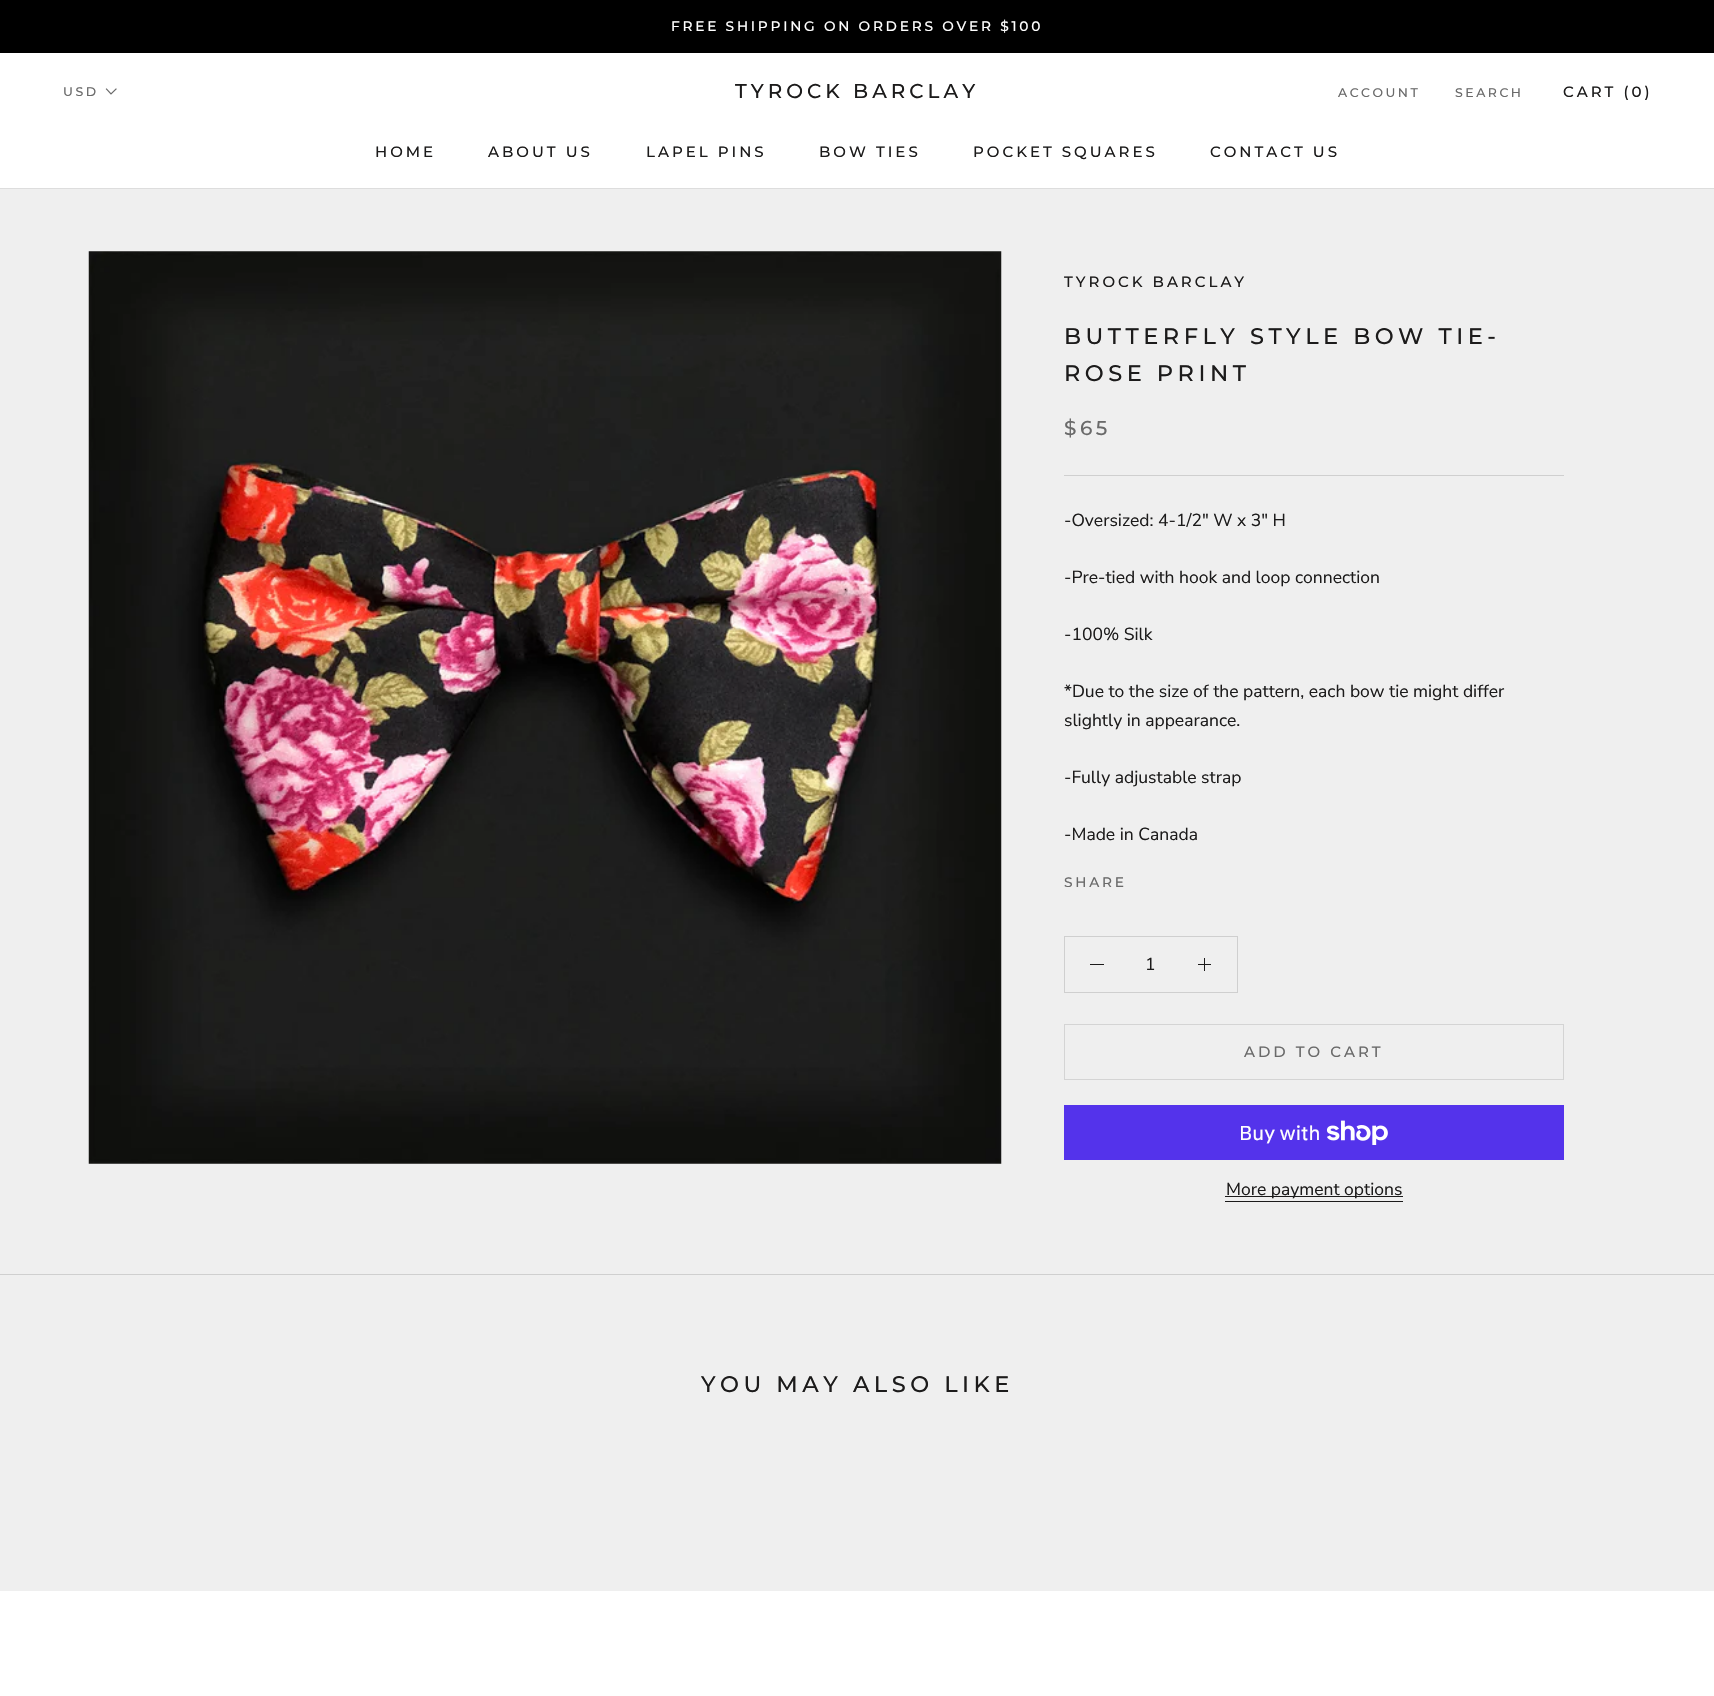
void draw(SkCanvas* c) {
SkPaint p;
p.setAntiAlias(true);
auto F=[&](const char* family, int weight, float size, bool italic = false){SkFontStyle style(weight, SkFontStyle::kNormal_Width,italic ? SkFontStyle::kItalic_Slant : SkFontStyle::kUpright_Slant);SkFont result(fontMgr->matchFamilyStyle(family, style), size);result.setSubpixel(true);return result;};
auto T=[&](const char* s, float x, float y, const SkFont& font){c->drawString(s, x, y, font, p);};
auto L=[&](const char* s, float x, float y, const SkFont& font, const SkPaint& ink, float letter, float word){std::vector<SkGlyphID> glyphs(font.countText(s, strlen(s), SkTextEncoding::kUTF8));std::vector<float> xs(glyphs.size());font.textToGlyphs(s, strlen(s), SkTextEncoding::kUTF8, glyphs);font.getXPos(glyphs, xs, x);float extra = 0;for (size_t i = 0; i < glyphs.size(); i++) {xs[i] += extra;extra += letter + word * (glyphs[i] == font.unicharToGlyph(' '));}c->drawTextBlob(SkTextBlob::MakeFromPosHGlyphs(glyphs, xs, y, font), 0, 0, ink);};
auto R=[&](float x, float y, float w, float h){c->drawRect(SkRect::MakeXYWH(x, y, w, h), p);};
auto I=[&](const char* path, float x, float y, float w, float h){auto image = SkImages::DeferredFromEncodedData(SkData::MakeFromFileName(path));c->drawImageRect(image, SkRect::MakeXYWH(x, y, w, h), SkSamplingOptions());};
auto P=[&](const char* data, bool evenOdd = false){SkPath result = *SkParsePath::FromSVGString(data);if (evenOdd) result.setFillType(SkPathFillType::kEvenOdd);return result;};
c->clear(0xffefefef);
p.setColor(0xff000000);
R(0,0,1714,53);
auto f1 = F("Montserrat",500,13.75);
p.setColor(0xffffffff);
L("FREE SHIPPING ON ORDERS OVER $100",671,31,f1,p,2.75,0);
R(0,53,1714,135);
p.setColor(0xffdddddd);
R(0,188,1714,1);
auto f2 = F("Montserrat",500,20);
p.setColor(0xff1c1b1b);
L("TYROCK BARCLAY",735,98,f2,p,4,0);
auto f3 = F("Montserrat",500,12.5);
p.setColor(0xff6a6a6a);
L("ACCOUNT",1338,97,f3,p,2.5,0);
L("SEARCH",1455,97,f3,p,2.5,0);
auto f4 = F("Montserrat",500,15);
p.setColor(0xff1c1b1b);
L("CART (0)",1563,97,f4,p,3,0);
p.setColor(0xff6a6a6a);
L("USD",63,96,f3,p,2.5,0);
p.setStroke(true);
p.setStrokeWidth(1.2);
p.setStrokeCap(SkPaint::kSquare_Cap);
c->drawPath(P("M116 89l-5 5l-4.5-5"),p);
p.setStroke(false);
p.setColor(0xff1c1b1b);
L("HOME",375,157,f4,p,3,0);
L("ABOUT US",488,157,f4,p,3,0);
L("LAPEL PINS",646,157,f4,p,3,0);
L("BOW TIES",819,157,f4,p,3,0);
L("POCKET SQUARES",973,157,f4,p,3,0);
L("CONTACT US",1210,157,f4,p,3,0);
I("1.png",88,251,914,913);
L("TYROCK BARCLAY",1064,287,f4,p,3,0);
auto f5 = F("Montserrat",500,22.5);
L("BUTTERFLY STYLE BOW TIE-",1064,344,f5,p,4.5,0);
L("ROSE PRINT",1064,381,f5,p,4.5,0);
p.setColor(0xff6a6a6a);
L("$65",1064,435,f2,p,3.5,0);
p.setColor(0xffcfcfcf);
R(1064,475,500,1);
auto f6 = F("Nunito Sans",400,17.5);
p.setColor(0xff1c1b1b);
T("-Oversized: 4-1/2\" W x 3\" H",1064,526,f6);
T("-Pre-tied with hook and loop connection",1064,583,f6);
T("-100% Silk",1064,640,f6);
T("*Due to the size of the pattern, each bow tie might differ",1064,697,f6);
T("slightly in appearance.",1064,726,f6);
T("-Fully adjustable strap",1064,783,f6);
T("-Made in Canada",1064,840,f6);
p.setColor(0xff6a6a6a);
L("SHARE",1064,887,f1,p,2.75,0);
p.setStroke(true);
p.setStrokeWidth(1);
p.setStrokeCap(SkPaint::kButt_Cap);
p.setColor(0xffcfcfcf);
c->drawRect(SkRect::MakeXYWH(1064.5,936.5,173,56),p);
p.setStroke(false);
p.setColor(0xff1c1b1b);
R(1090,964,14,1);
T("1",1145,970,f6);
R(1204,958,1,13);
R(1198,964,13,1);
p.setStroke(true);
p.setColor(0xffd4d4d4);
c->drawRect(SkRect::MakeXYWH(1064.5,1024.5,499,55),p);
p.setStroke(false);
p.setColor(0xff6a6a6a);
L("ADD TO CART",1244,1057,f4,p,3,0);
p.setColor(0xff5433eb);
R(1064,1105,500,55);
auto f7 = F("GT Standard",400,20);
p.setColor(0xffffffff);
T("Buy with",1239,1140,f7);
I("2.png",1326,1120,62,25);
p.setColor(0xff1c1b1b);
R(1225,1196,178,1);
T("More payment options",1226,1195,f6);
R(1225,1201,178,1);
p.setColor(0xffcfcfcf);
R(0,1274,1714,1);
p.setColor(0xff1c1b1b);
L("YOU MAY ALSO LIKE",701,1392,f5,p,4.5,0);
p.setColor(0xffffffff);
R(0,1591,1714,105);
}
